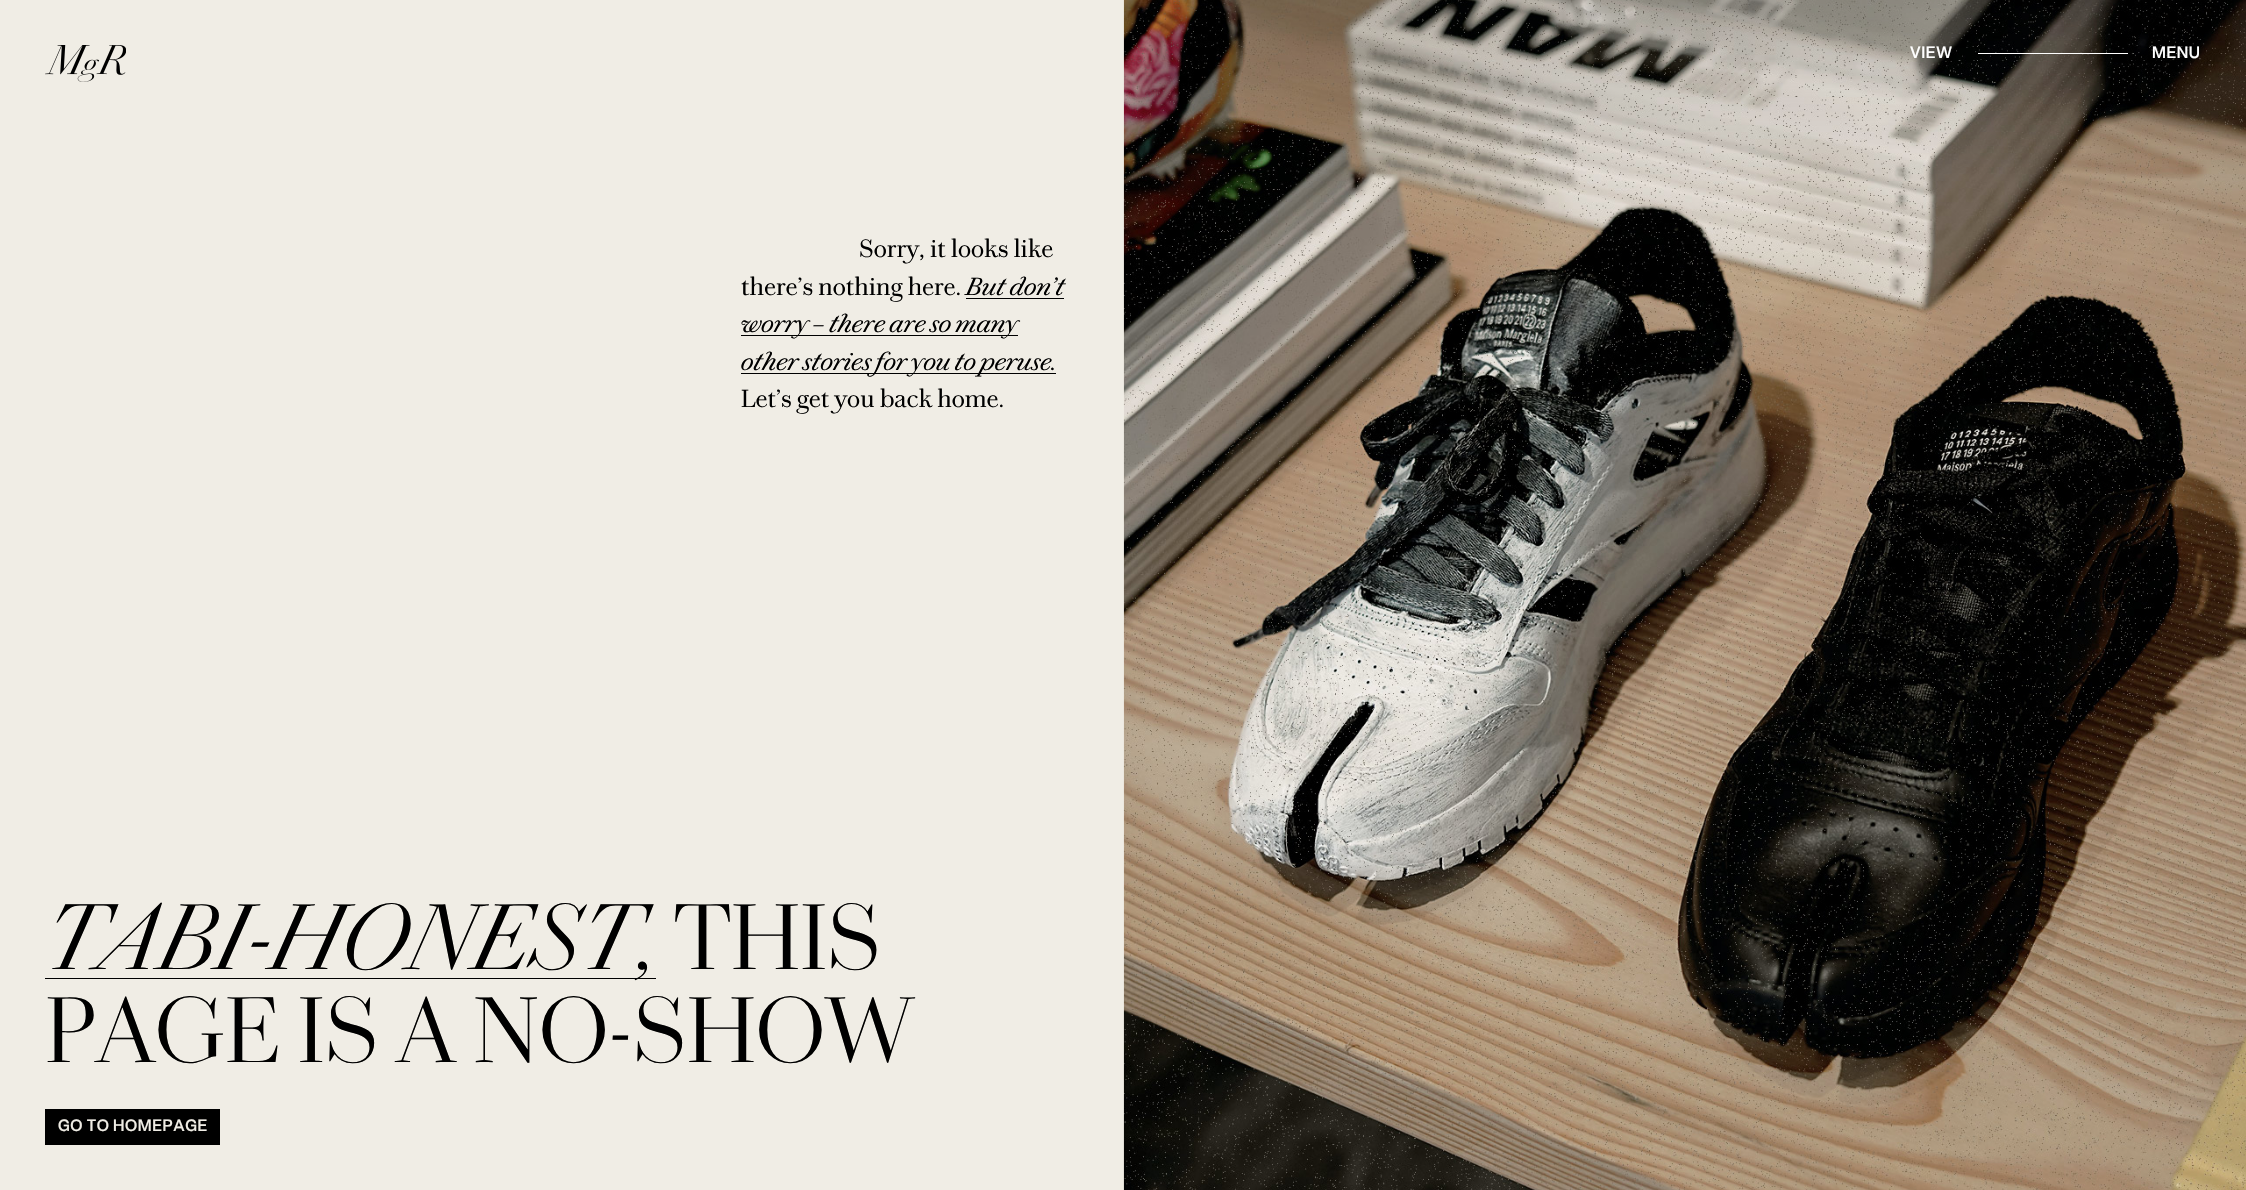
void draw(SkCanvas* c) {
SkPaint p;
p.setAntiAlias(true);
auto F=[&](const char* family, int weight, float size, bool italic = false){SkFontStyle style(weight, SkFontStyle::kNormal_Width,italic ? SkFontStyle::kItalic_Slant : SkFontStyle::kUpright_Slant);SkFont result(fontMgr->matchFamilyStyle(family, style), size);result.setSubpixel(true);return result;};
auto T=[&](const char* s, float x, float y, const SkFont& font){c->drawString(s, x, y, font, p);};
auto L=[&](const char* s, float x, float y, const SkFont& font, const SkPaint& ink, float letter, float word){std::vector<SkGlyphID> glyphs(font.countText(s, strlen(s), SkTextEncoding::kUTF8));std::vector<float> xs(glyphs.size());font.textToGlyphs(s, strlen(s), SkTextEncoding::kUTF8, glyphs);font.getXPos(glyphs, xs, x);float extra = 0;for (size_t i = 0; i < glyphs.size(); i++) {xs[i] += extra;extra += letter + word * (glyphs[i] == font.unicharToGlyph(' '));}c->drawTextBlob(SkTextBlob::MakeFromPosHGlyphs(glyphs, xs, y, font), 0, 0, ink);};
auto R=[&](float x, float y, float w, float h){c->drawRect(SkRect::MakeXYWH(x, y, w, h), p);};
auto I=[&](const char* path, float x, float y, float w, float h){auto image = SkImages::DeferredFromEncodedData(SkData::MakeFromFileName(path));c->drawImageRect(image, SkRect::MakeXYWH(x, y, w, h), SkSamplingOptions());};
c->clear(0xfff0ede5);
I("1.png",45,45,81,37);
I("2.png",1123,0,1123,1190);
auto f1 = F("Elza",500,16.25);
p.setColor(0xffffffff);
L("VIEW",1910,58,f1,p,.6,0);
R(1978,53,150,1);
L("MENU",2152,58,f1,p,.6,0);
auto f2 = F("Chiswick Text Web",300,25);
p.setColor(0xff000000);
T("Sorry, it looks like",859,257,f2);
T("there’s nothing here.",741,295,f2);
auto f3 = F("Chiswick Text Web",300,25,true);
T("But don’t",966,295,f3);
R(966,298,98,1);
R(741,335,277,1);
T("worry – there are so many",741,332,f3);
R(741,373,315,1);
T("other stories for you to peruse.",741,370,f3);
T("Let’s get you back home.",741,407,f2);
R(45,978,611,1);
auto f4 = F("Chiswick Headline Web",300,93.75,true);
T("TABI-HONEST,",45,969,f4);
auto f5 = F("Chiswick Headline Web",300,93.75);
T("THIS",674,969,f5);
T("PAGE IS A NO-SHOW",45,1062,f5);
R(45,1109,175,36);
p.setColor(0xfff0ede5);
L("GO TO HOMEPAGE",58,1131,f1,p,.6,0);
}
